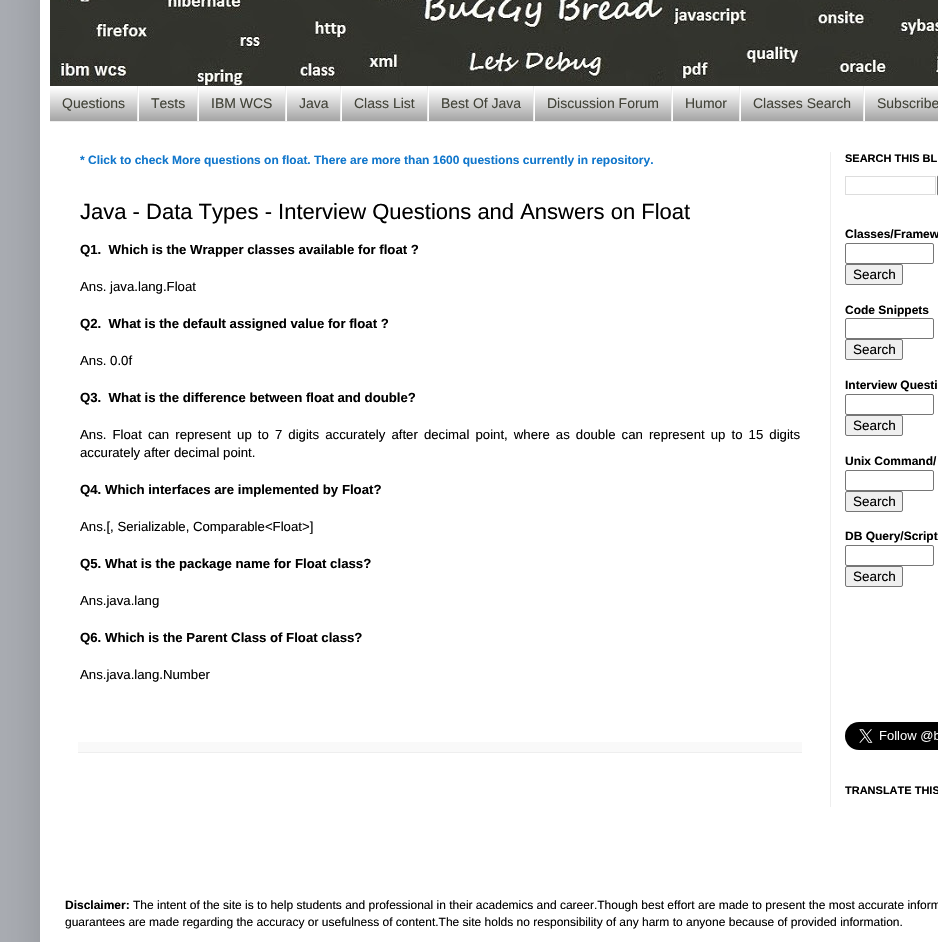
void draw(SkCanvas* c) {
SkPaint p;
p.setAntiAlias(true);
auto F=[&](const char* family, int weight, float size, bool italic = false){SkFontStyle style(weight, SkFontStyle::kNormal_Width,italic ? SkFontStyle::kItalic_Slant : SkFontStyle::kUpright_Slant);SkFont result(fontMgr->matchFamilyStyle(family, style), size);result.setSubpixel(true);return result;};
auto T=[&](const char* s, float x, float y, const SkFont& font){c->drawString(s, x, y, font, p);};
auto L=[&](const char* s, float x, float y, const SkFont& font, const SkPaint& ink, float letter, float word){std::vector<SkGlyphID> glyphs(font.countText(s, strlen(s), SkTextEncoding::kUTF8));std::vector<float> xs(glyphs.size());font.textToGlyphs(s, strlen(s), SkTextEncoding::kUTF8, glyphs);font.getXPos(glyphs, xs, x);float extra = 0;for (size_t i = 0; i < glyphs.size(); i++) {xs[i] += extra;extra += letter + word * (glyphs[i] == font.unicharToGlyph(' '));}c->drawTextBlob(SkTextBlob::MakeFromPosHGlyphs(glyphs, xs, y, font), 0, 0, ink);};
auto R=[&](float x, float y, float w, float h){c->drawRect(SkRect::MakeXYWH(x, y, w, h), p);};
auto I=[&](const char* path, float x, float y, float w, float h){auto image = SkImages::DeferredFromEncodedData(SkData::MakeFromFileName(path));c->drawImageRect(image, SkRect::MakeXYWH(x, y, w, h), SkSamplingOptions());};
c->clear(0xffa9acb2);
p.setColor(0x26000000);
p.setMaskFilter(SkMaskFilter::MakeBlur(kNormal_SkBlurStyle, 20));
c->drawRect(SkRect::MakeXYWH(40,-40,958,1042),p);
p.setMaskFilter(nullptr);
p.setColor(0xffffffff);
R(40,0,898,942);
I("1.png",50,0,888,86);
p.setColor(0xff999999);
R(50,87,888,34);
I("2.png",50,86,888,35);
p.setColor(0xffeeeeee);
R(50,121,888,1);
R(137,86,1,35);
auto f1 = F("Liberation Sans",400,14);
p.setColor(0xff424338);
T("Questions",62,108,f1);
p.setColor(0xffeeeeee);
R(197,86,1,35);
p.setColor(0xffffffff);
R(138,86,1,35);
p.setColor(0xff424338);
T("Tests",151,108,f1);
p.setColor(0xffeeeeee);
R(285,86,1,35);
p.setColor(0xffffffff);
R(198,86,1,35);
p.setColor(0xff424338);
T("IBM WCS",211,108,f1);
p.setColor(0xffeeeeee);
R(340,86,1,35);
p.setColor(0xffffffff);
R(286,86,1,35);
p.setColor(0xff424338);
T("Java",299,108,f1);
p.setColor(0xffeeeeee);
R(427,86,1,35);
p.setColor(0xffffffff);
R(341,86,1,35);
p.setColor(0xff424338);
T("Class List",354,108,f1);
p.setColor(0xffeeeeee);
R(533,86,1,35);
p.setColor(0xffffffff);
R(428,86,1,35);
p.setColor(0xff424338);
T("Best Of Java",441,108,f1);
p.setColor(0xffeeeeee);
R(671,86,1,35);
p.setColor(0xffffffff);
R(534,86,1,35);
p.setColor(0xff424338);
T("Discussion Forum",547,108,f1);
p.setColor(0xffeeeeee);
R(739,86,1,35);
p.setColor(0xffffffff);
R(672,86,1,35);
p.setColor(0xff424338);
T("Humor",685,108,f1);
p.setColor(0xffeeeeee);
R(863,86,1,35);
p.setColor(0xffffffff);
R(740,86,1,35);
p.setColor(0xff424338);
T("Classes Search",753,108,f1);
p.setColor(0xffffffff);
R(864,86,1,35);
p.setColor(0xff424338);
T("Subscribe",877,108,f1);
p.setColor(0xffeeeeee);
R(830,152,1,655);
auto f2 = F("Liberation Sans",700,12);
p.setColor(0xff1177cc);
T("* Click to check More questions on float. There are more than 1600 questions currently in repository.",80,164,f2);
auto f3 = F("Liberation Sans",400,22);
p.setColor(0xff000000);
T("Java - Data Types - Interview Questions and Answers on Float",80,219,f3);
auto f4 = F("Liberation Sans",700,13.2);
T("Q1.  Which is the Wrapper classes available for float ?",80,254,f4);
auto f5 = F("Liberation Sans",400,13.2);
T("Ans. java.lang.Float",80,291,f5);
T("Q2.  What is the default assigned value for float ?",80,328,f4);
T("Ans. 0.0f",80,365,f5);
T("Q3.  What is the difference between float and double?",80,402,f4);
L("Ans. Float can represent up to 7 digits accurately after decimal point, where as double can represent up to 15 digits",80,439,f5,p,0,2.4);
T("accurately after decimal point.",80,457,f5);
T("Q4. Which interfaces are implemented by Float?",80,494,f4);
T("Ans.[, Serializable, Comparable<Float>]",80,531,f5);
T("Q5. What is the package name for Float class?",80,568,f4);
T("Ans.java.lang",80,605,f5);
T("Q6. Which is the Parent Class of Float class?",80,642,f4);
T("Ans.java.lang.Number",80,679,f5);
p.setColor(0xfff9f9f9);
R(78,742,724,10);
p.setColor(0xffeeeeee);
R(78,752,724,1);
auto f6 = F("Liberation Sans",700,11);
p.setColor(0xff000000);
T("SEARCH THIS BL",845,162,f6);
p.setStroke(true);
p.setStrokeWidth(1);
p.setColor(0xffdddddd);
c->drawRect(SkRect::MakeXYWH(845.5,176.5,90,18),p);
p.setColor(0xff767676);
c->drawRoundRect(SkRect::MakeXYWH(937.5,175.5,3,20),1.5,1.5,p);
p.setStroke(false);
p.setColor(0xff000000);
T("Classes/Framew",845,238,f2);
p.setStroke(true);
p.setColor(0xff767676);
c->drawRoundRect(SkRect::MakeXYWH(845.5,243.5,88,20),1.5,1.5,p);
p.setStroke(false);
p.setColor(0xffefefef);
c->drawRoundRect(SkRect::MakeXYWH(845.5,264.5,57,20),1.5,1.5,p);
p.setStroke(true);
p.setColor(0xff767676);
c->drawRoundRect(SkRect::MakeXYWH(845.5,264.5,57,20),1.5,1.5,p);
auto f7 = F("Liberation Sans",400,13.5);
p.setStroke(false);
p.setColor(0xff000000);
T("Search",853,279,f7);
T("Code Snippets",845,314,f2);
p.setStroke(true);
p.setColor(0xff767676);
c->drawRoundRect(SkRect::MakeXYWH(845.5,318.5,88,20),1.5,1.5,p);
p.setStroke(false);
p.setColor(0xffefefef);
c->drawRoundRect(SkRect::MakeXYWH(845.5,339.5,57,20),1.5,1.5,p);
p.setStroke(true);
p.setColor(0xff767676);
c->drawRoundRect(SkRect::MakeXYWH(845.5,339.5,57,20),1.5,1.5,p);
p.setStroke(false);
p.setColor(0xff000000);
T("Search",853,354,f7);
T("Interview Questi",845,389,f2);
p.setStroke(true);
p.setColor(0xff767676);
c->drawRoundRect(SkRect::MakeXYWH(845.5,394.5,88,20),1.5,1.5,p);
p.setStroke(false);
p.setColor(0xffefefef);
c->drawRoundRect(SkRect::MakeXYWH(845.5,415.5,57,20),1.5,1.5,p);
p.setStroke(true);
p.setColor(0xff767676);
c->drawRoundRect(SkRect::MakeXYWH(845.5,415.5,57,20),1.5,1.5,p);
p.setStroke(false);
p.setColor(0xff000000);
T("Search",853,430,f7);
T("Unix Command/",845,465,f2);
p.setStroke(true);
p.setColor(0xff767676);
c->drawRoundRect(SkRect::MakeXYWH(845.5,470.5,88,20),1.5,1.5,p);
p.setStroke(false);
p.setColor(0xffefefef);
c->drawRoundRect(SkRect::MakeXYWH(845.5,491.5,57,20),1.5,1.5,p);
p.setStroke(true);
p.setColor(0xff767676);
c->drawRoundRect(SkRect::MakeXYWH(845.5,491.5,57,20),1.5,1.5,p);
p.setStroke(false);
p.setColor(0xff000000);
T("Search",853,506,f7);
T("DB Query/Script",845,540,f2);
p.setStroke(true);
p.setColor(0xff767676);
c->drawRoundRect(SkRect::MakeXYWH(845.5,545.5,88,20),1.5,1.5,p);
p.setStroke(false);
p.setColor(0xffefefef);
c->drawRoundRect(SkRect::MakeXYWH(845.5,566.5,57,20),1.5,1.5,p);
p.setStroke(true);
p.setColor(0xff767676);
c->drawRoundRect(SkRect::MakeXYWH(845.5,566.5,57,20),1.5,1.5,p);
p.setStroke(false);
p.setColor(0xff000000);
T("Search",853,581,f7);
I("3.png",845,722,93,28);
T("TRANSLATE THIS",845,794,f6);
T("Disclaimer:",65,909,f2);
auto f8 = F("Liberation Sans",400,12);
T("The intent of the site is to help students and professional in their academics and career.Though best effort are made to present the most accurate inform",133,909,f8);
T("guarantees are made regarding the accuracy or usefulness of content.The site holds no responsibility of any harm to anyone because of provided information.",65,926,f8);
}
